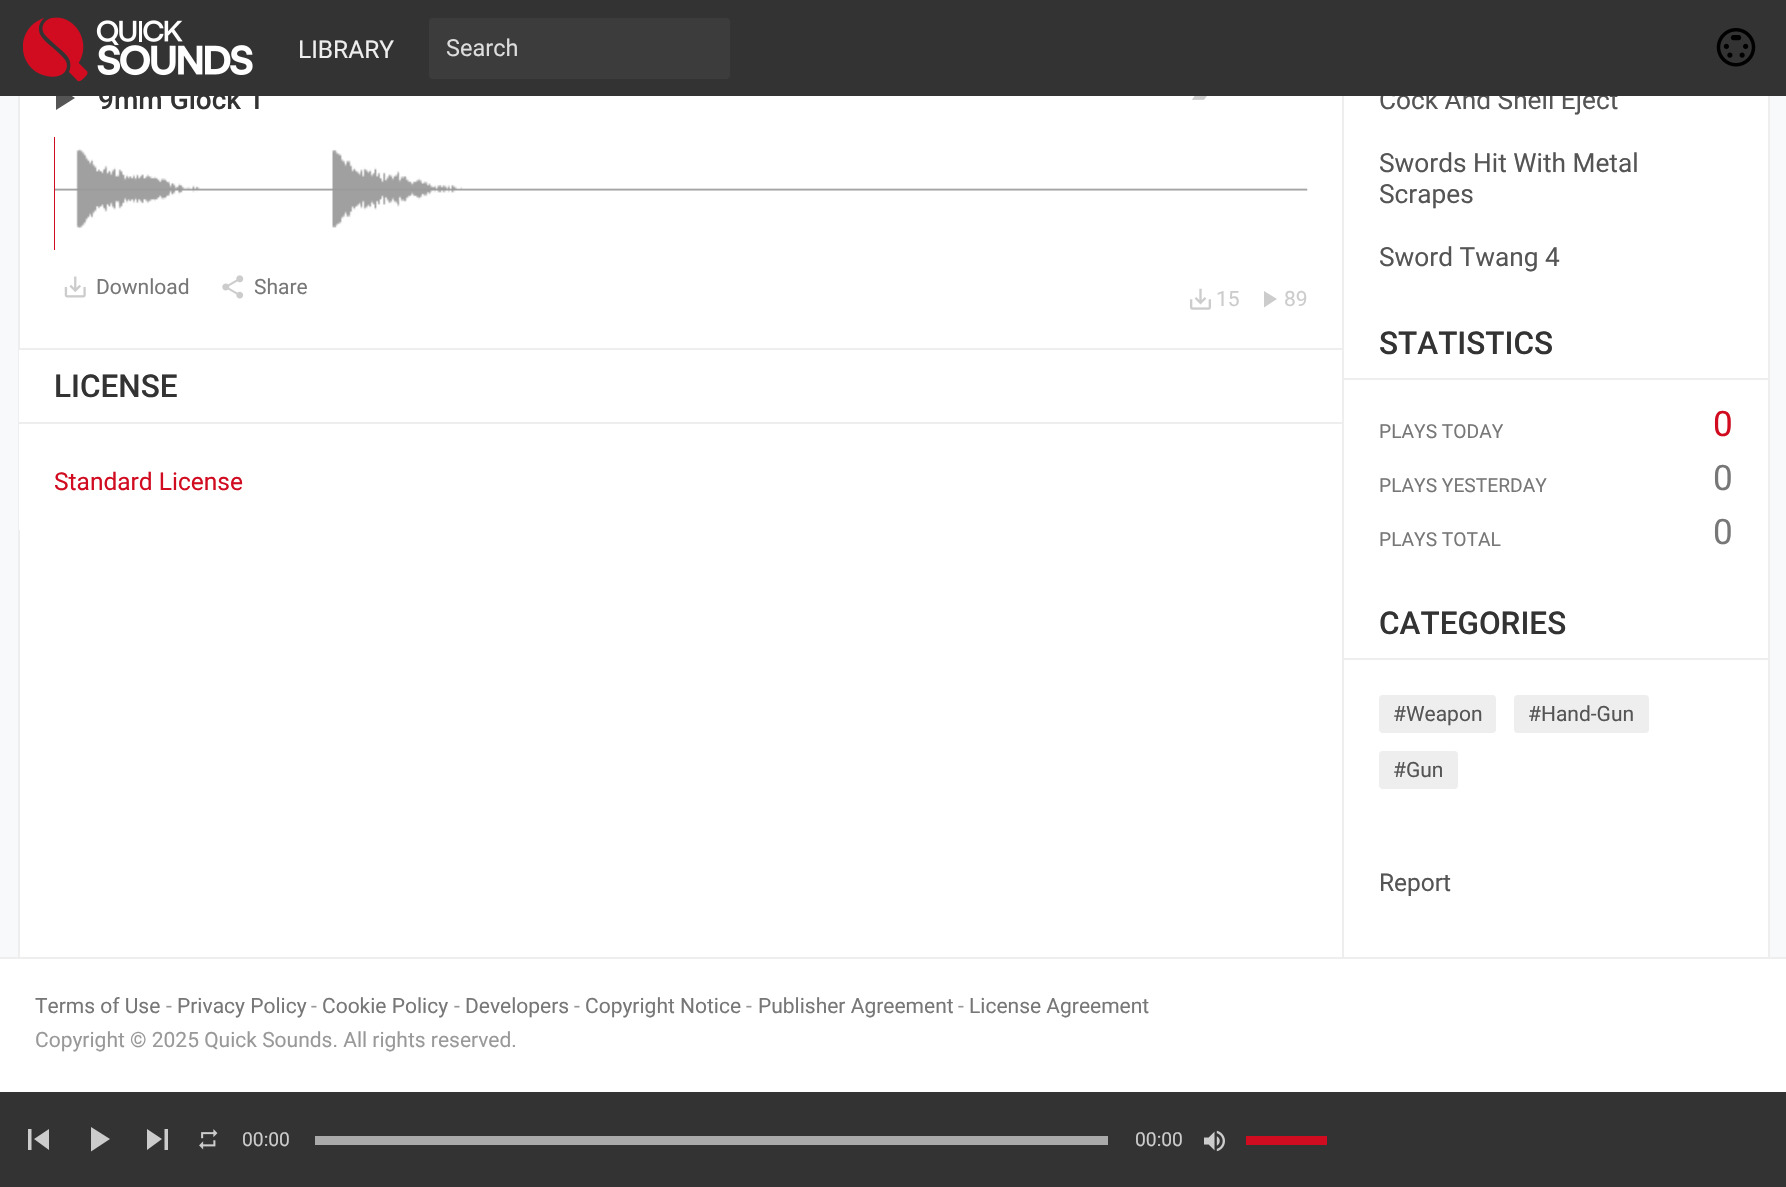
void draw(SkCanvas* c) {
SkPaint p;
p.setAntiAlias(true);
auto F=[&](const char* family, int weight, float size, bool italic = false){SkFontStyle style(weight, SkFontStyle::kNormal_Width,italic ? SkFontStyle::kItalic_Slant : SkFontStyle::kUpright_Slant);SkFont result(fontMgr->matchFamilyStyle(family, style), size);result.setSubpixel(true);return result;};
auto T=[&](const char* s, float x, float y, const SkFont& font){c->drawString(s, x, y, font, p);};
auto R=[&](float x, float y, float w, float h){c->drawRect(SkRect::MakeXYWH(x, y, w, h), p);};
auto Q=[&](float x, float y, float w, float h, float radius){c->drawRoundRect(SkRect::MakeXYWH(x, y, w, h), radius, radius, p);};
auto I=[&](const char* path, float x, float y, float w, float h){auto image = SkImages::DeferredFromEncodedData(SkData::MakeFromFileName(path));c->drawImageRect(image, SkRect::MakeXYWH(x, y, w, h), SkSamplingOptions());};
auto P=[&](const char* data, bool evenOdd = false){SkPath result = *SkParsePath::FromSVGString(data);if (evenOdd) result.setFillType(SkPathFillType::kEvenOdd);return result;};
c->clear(0xffffffff);
p.setColor(0xfff8f9fa);
R(0,96,1786,861);
p.setColor(0xffffffff);
R(20,96,1748,861);
p.setColor(0xff555555);
c->drawPath(P("M56 86v24l19-12z"),p);
auto f1 = F("Roboto",400,26.25);
T("Cock And Shell Eject",1379,109,f1);
p.setColor(0xff333333);
R(0,0,1786,96);
I("1.png",23,17,230,65);
auto f2 = F("Roboto",400,24.5);
p.setColor(0xffeeeeee);
T("LIBRARY",298,58,f2);
p.setColor(0xff3c3c3c);
Q(429,18,301,61,4);
auto f3 = F("Roboto",400,23.5);
p.setColor(0xffdddddd);
T("Search",446,56,f3);
I("2.png",1716,28,40,39);
p.setColor(0xffeeeeee);
R(0,957,1786,2);
R(1768,96,2,861);
R(18,96,2,861);
R(19,348,1323,2);
auto f4 = F("Roboto",500,28);
p.setColor(0xff333333);
T("9mm Glock 1",98,109,f4);
I("3.png",1192,96,15,4);
p.setColor(0xffd10b20);
R(54,137,1,113);
I("4.png",55,148,1253,81);
I("5.png",64,276,22,22);
auto f5 = F("Roboto",400,21);
p.setColor(0xff777777);
T("Download",96,294,f5);
I("6.png",222,275,22,24);
T("Share",254,294,f5);
I("7.png",1190,288,21,22);
p.setColor(0xffcccccc);
T("15",1216,306,f5);
c->drawPath(P("M1264 291v16.5l13-8.5z"),p);
T("89",1284,306,f5);
p.setColor(0xffffffff);
R(19,350,1,180);
p.setColor(0xffeeeeee);
R(19,422,1323,2);
auto f6 = F("Roboto",500,31.5);
p.setColor(0xff333333);
T("LICENSE",54,397,f6);
p.setColor(0xffd10b20);
T("Standard License",54,490,f2);
p.setColor(0xffeeeeee);
R(1342,96,2,861);
p.setColor(0xff555555);
T("Swords Hit With Metal",1379,172,f1);
T("Scrapes",1379,203,f1);
T("Sword Twang 4",1379,266,f1);
p.setColor(0xffeeeeee);
R(1344,378,424,2);
p.setColor(0xff333333);
T("STATISTICS",1379,354,f6);
auto f7 = F("Roboto",400,19.25);
p.setColor(0xff777777);
T("PLAYS TODAY",1379,438,f7);
auto f8 = F("Roboto",400,35);
p.setColor(0xffd10b20);
T("0",1713,436,f8);
p.setColor(0xff777777);
T("PLAYS YESTERDAY",1379,492,f7);
T("0",1713,490,f8);
T("PLAYS TOTAL",1379,546,f7);
T("0",1713,544,f8);
p.setColor(0xffeeeeee);
R(1344,658,424,2);
p.setColor(0xff333333);
T("CATEGORIES",1379,634,f6);
p.setColor(0xffeeeeee);
Q(1379,695,117,38,4);
p.setColor(0xff555555);
T("#Weapon",1393,721,f5);
p.setColor(0xffeeeeee);
Q(1514,695,135,38,4);
p.setColor(0xff555555);
T("#Hand-Gun",1528,721,f5);
p.setColor(0xffeeeeee);
Q(1379,751,79,38,4);
p.setColor(0xff555555);
T("#Gun",1393,777,f5);
T("Report",1379,891,f2);
p.setColor(0xff777777);
T("Terms of Use",35,1013,f5);
p.setColor(0xff999999);
T("-",166,1013,f5);
p.setColor(0xff777777);
T("Privacy Policy",177,1013,f5);
p.setColor(0xff999999);
T("-",311,1013,f5);
p.setColor(0xff777777);
T("Cookie Policy",322,1013,f5);
p.setColor(0xff999999);
T("-",454,1013,f5);
p.setColor(0xff777777);
T("Developers",465,1013,f5);
p.setColor(0xff999999);
T("-",574,1013,f5);
p.setColor(0xff777777);
T("Copyright Notice",585,1013,f5);
p.setColor(0xff999999);
T("-",746,1013,f5);
p.setColor(0xff777777);
T("Publisher Agreement",758,1013,f5);
p.setColor(0xff999999);
T("-",958,1013,f5);
p.setColor(0xff777777);
T("License Agreement",969,1013,f5);
p.setColor(0xff999999);
T("Copyright © 2025 Quick Sounds. All rights reserved.",35,1047,f5);
p.setColor(0xff333333);
R(0,1092,1786,95);
p.setColor(0xffcccccc);
c->drawPath(P("M28 1129h3.5v21h-3.5zm6 10l15 11v-21z"),p);
c->drawPath(P("M91 1127v24.5l19-12.5z"),p);
c->drawPath(P("M147 1150l15-11l-15-10zm17.5-21v21h3.5v-21z"),p);
I("8.png",199,1129,19,21);
T("00:00",242,1146,f7);
p.setColor(0xffaaaaaa);
R(315,1136,793,9);
p.setColor(0xffcccccc);
T("00:00",1135,1146,f7);
I("9.png",1204,1130,21,22);
p.setColor(0xffd10b20);
R(1246,1136,81,9);
}
